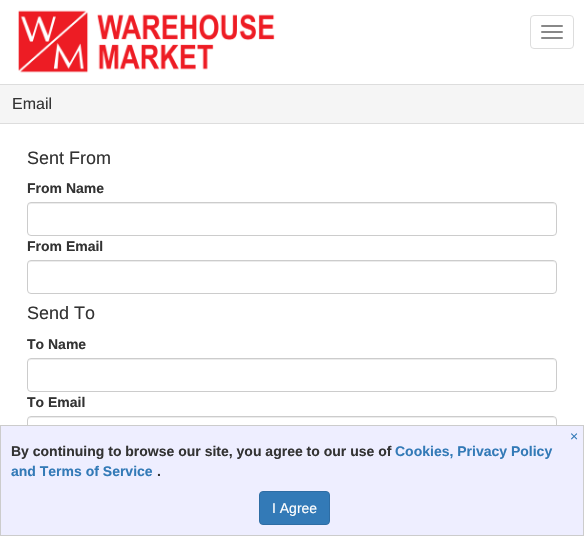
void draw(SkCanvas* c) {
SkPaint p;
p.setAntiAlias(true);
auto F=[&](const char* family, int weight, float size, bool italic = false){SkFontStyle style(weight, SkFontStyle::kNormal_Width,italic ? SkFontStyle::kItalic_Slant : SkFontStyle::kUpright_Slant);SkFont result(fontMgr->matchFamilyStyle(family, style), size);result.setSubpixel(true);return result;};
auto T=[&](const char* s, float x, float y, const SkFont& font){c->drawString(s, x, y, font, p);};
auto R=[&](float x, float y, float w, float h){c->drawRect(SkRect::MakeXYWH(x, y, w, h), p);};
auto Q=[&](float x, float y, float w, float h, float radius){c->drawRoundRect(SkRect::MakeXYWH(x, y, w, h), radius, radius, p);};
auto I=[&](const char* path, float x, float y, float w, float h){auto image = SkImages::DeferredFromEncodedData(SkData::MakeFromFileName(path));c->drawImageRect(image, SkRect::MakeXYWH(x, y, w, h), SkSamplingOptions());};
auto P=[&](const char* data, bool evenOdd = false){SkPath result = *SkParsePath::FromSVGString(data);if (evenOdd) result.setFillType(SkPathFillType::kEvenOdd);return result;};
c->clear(0xffffffff);
I("1.png",18,10,257,63);
p.setStroke(true);
p.setStrokeWidth(1);
p.setColor(0xffdddddd);
c->drawRoundRect(SkRect::MakeXYWH(530.5,15.5,43,33),3.5,3.5,p);
p.setStroke(false);
p.setColor(0xff888888);
Q(541,25,22,2,1);
Q(541,31,22,2,1);
Q(541,37,22,2,1);
p.setStroke(true);
p.setColor(0xffdddddd);
c->drawRect(SkRect::MakeXYWH(-.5,84.5,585,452),p);
p.setStroke(false);
p.setColor(0xfff5f5f5);
R(0,85,584,38);
p.setColor(0xffdddddd);
R(0,123,584,1);
auto f1 = F("Liberation Sans",400,16);
p.setColor(0xff333333);
T("Email",12,109,f1);
auto f2 = F("Liberation Sans",400,18);
T("Sent From",27,164,f2);
auto f3 = F("Liberation Sans",700,14);
T("From Name",27,193,f3);
p.setColor(0xffececec);
c->drawPath(P("M31 204h522c2 0 3 1 3 3l-1-3l-2-1h-522c-2 0-3 2-3 4c0-2 1-3 3-3z"),p);
p.setStroke(true);
p.setColor(0xffcccccc);
c->drawRoundRect(SkRect::MakeXYWH(27.5,202.5,529,33),3.5,3.5,p);
p.setStroke(false);
p.setColor(0xff333333);
T("From Email",27,251,f3);
p.setColor(0xffececec);
c->drawPath(P("M31 262h522c2 0 3 1 3 3l-1-3l-2-1h-522c-2 0-3 2-3 4c0-2 1-3 3-3z"),p);
p.setStroke(true);
p.setColor(0xffcccccc);
c->drawRoundRect(SkRect::MakeXYWH(27.5,260.5,529,33),3.5,3.5,p);
p.setStroke(false);
p.setColor(0xff333333);
T("Send To",27,319,f2);
T("To Name",27,349,f3);
p.setColor(0xffececec);
c->drawPath(P("M31 360h522c2 0 3 1 3 3l-1-3l-2-1h-522c-2 0-3 2-3 4c0-2 1-3 3-3z"),p);
p.setStroke(true);
p.setColor(0xffcccccc);
c->drawRoundRect(SkRect::MakeXYWH(27.5,358.5,529,33),3.5,3.5,p);
p.setStroke(false);
p.setColor(0xff333333);
T("To Email",27,407,f3);
p.setColor(0xffececec);
c->drawPath(P("M31 418h522c2 0 3 1 3 3l-1-3l-2-1h-522c-2 0-3 2-3 4c0-2 1-3 3-3z"),p);
p.setStroke(true);
p.setColor(0xffcccccc);
c->drawRoundRect(SkRect::MakeXYWH(27.5,416.5,529,33),3.5,3.5,p);
p.setStroke(false);
p.setColor(0xffeeeeff);
c->drawRect(SkRect::MakeXYWH(.5,425.5,583,110),p);
p.setStroke(true);
p.setColor(0xffcccccc);
c->drawRect(SkRect::MakeXYWH(.5,425.5,583,110),p);
auto f4 = F("Liberation Sans",400,14);
p.setStroke(false);
p.setColor(0xff337ab7);
T("×",570,441,f4);
p.setColor(0xff333333);
T("By continuing to browse our site, you agree to our use of",11,456,f3);
p.setColor(0xff337ab7);
T("Cookies, Privacy Policy",395,456,f3);
T("and Terms of Service",11,476,f3);
p.setColor(0xff333333);
T(".",157,476,f3);
p.setColor(0xff337ab7);
c->drawRoundRect(SkRect::MakeXYWH(259.5,491.5,70,33),3.5,3.5,p);
p.setStroke(true);
p.setColor(0xff2e6da4);
c->drawRoundRect(SkRect::MakeXYWH(259.5,491.5,70,33),3.5,3.5,p);
p.setStroke(false);
p.setColor(0xffffffff);
T("I Agree",272,513,f4);
}
